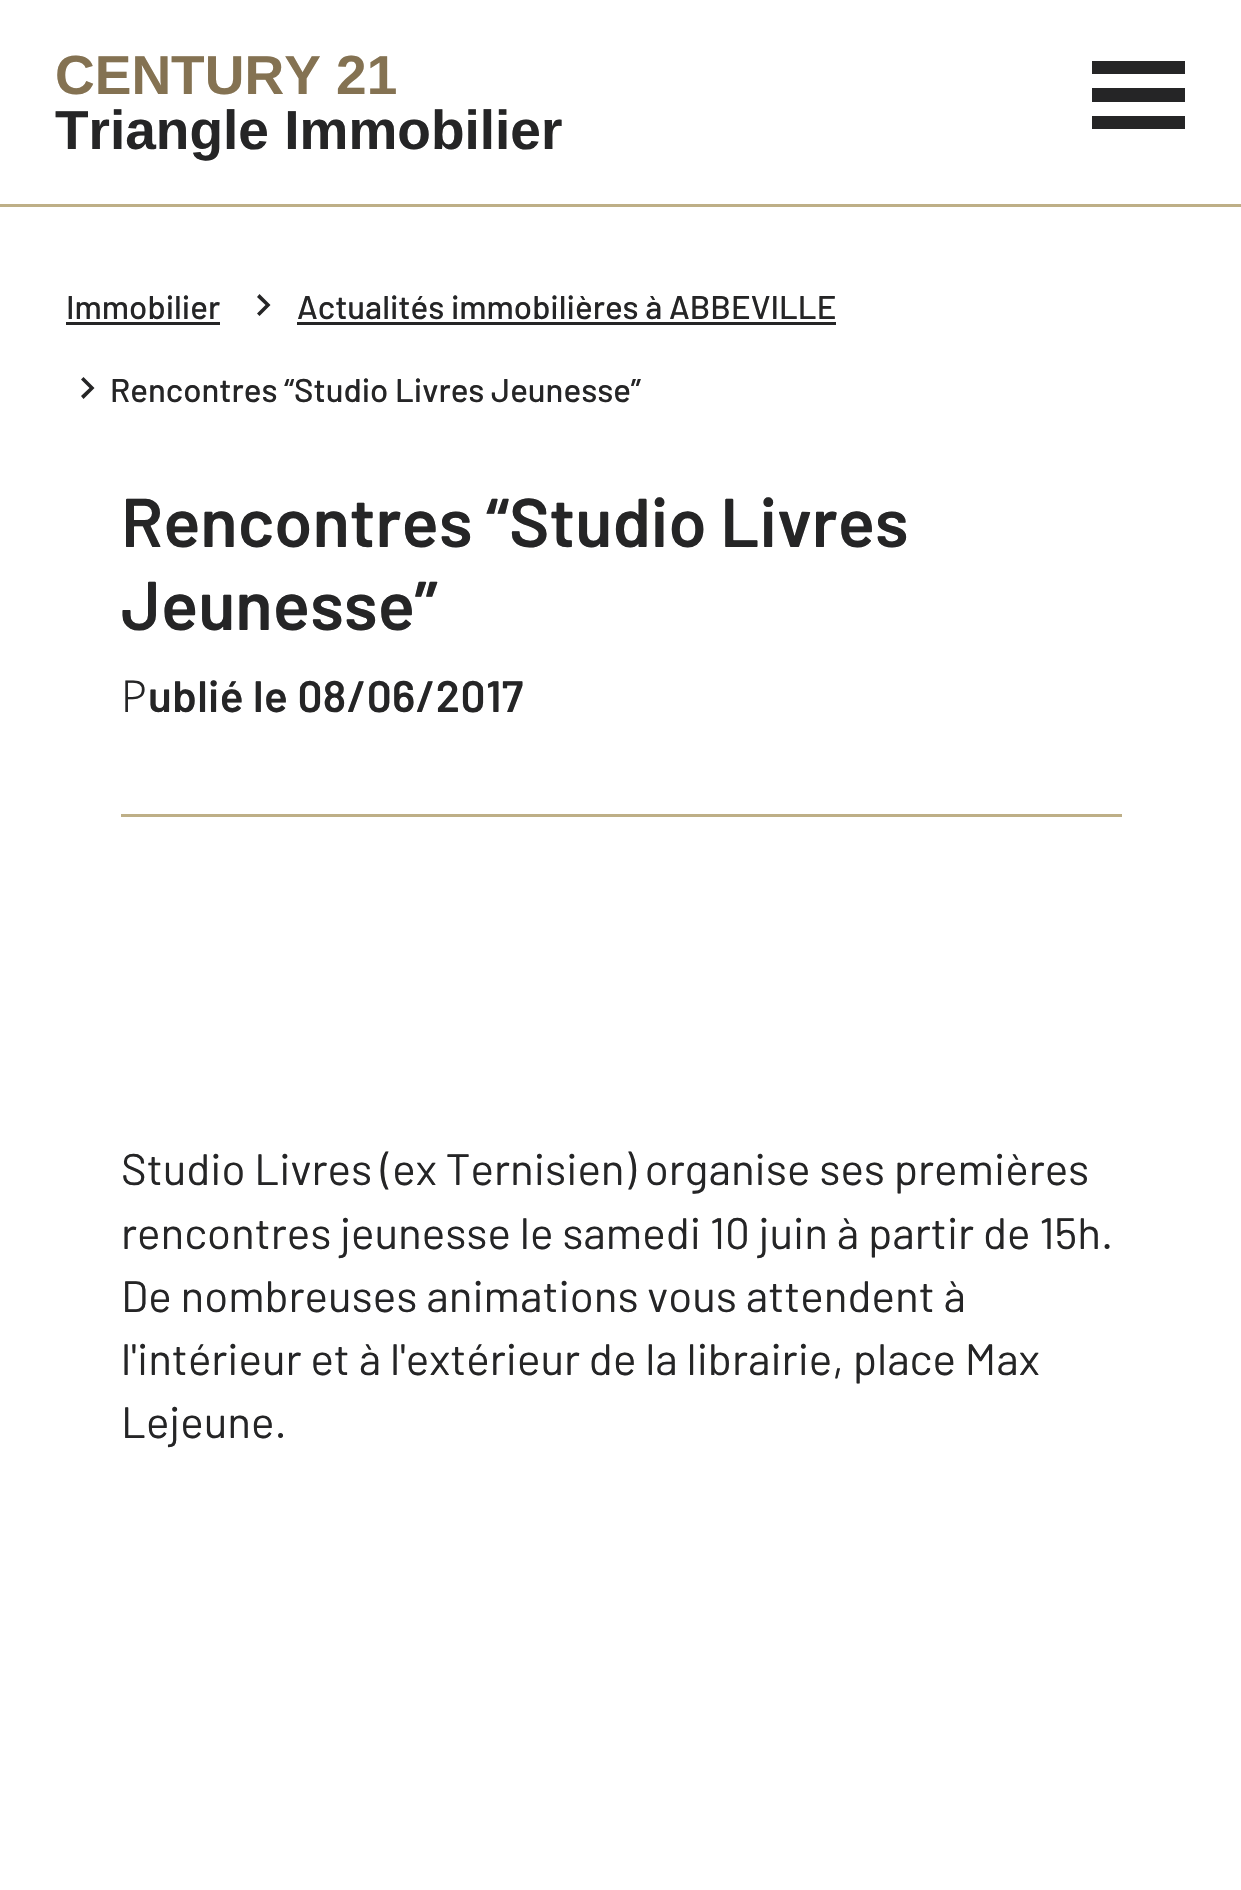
void draw(SkCanvas* c) {
SkPaint p;
p.setAntiAlias(true);
auto F=[&](const char* family, int weight, float size, bool italic = false){SkFontStyle style(weight, SkFontStyle::kNormal_Width,italic ? SkFontStyle::kItalic_Slant : SkFontStyle::kUpright_Slant);SkFont result(fontMgr->matchFamilyStyle(family, style), size);result.setSubpixel(true);return result;};
auto T=[&](const char* s, float x, float y, const SkFont& font){c->drawString(s, x, y, font, p);};
auto L=[&](const char* s, float x, float y, const SkFont& font, const SkPaint& ink, float letter, float word){std::vector<SkGlyphID> glyphs(font.countText(s, strlen(s), SkTextEncoding::kUTF8));std::vector<float> xs(glyphs.size());font.textToGlyphs(s, strlen(s), SkTextEncoding::kUTF8, glyphs);font.getXPos(glyphs, xs, x);float extra = 0;for (size_t i = 0; i < glyphs.size(); i++) {xs[i] += extra;extra += letter + word * (glyphs[i] == font.unicharToGlyph(' '));}c->drawTextBlob(SkTextBlob::MakeFromPosHGlyphs(glyphs, xs, y, font), 0, 0, ink);};
auto R=[&](float x, float y, float w, float h){c->drawRect(SkRect::MakeXYWH(x, y, w, h), p);};
auto P=[&](const char* data, bool evenOdd = false){SkPath result = *SkParsePath::FromSVGString(data);if (evenOdd) result.setFillType(SkPathFillType::kEvenOdd);return result;};
c->clear(0xffffffff);
p.setColor(0xffbeaf87);
R(0,204,1241,3);
auto f1 = F("Liberation Sans",700,55);
p.setColor(0xff847252);
T("CENTURY 21",55,94,f1);
p.setColor(0xff252526);
T("Triangle Immobilier",55,149,f1);
R(1092,116,93,13);
R(1092,61,93,13);
R(1092,88,93,14);
auto f2 = F("Barlow",500,33);
T("Immobilier",66,319,f2);
R(66,322,154,3);
c->drawPath(P("M259.5 316l11-11l-11-11l-2.5 3l8.5 8l-8.5 8.5z"),p);
T("Actualités immobilières à ABBEVILLE",297,319,f2);
R(297,322,539,3);
c->drawPath(P("M83.5 399l11-11l-11-11l-2.5 2.5l8.5 8.5l-8.5 8z"),p);
T("Rencontres “Studio Livres Jeunesse”",110,402,f2);
auto f3 = F("Barlow",600,68.75);
T("Rencontres “Studio Livres",121,547,f3);
T("Jeunesse”",121,630,f3);
auto f4 = F("Noto Sans",300,44);
L("P",121,712,f4,p,.4,0);
auto f5 = F("Barlow",600,44);
L("ublié le 08/06/2017",148,712,f5,p,.4,0);
p.setColor(0xffbeaf87);
R(121,814,1001,3);
auto f6 = F("Barlow",400,44);
p.setColor(0xff252526);
T("Studio Livres (ex Ternisien) organise ses premières",121,1185,f6);
T("rencontres jeunesse le samedi 10 juin à partir de 15h.",121,1249,f6);
T("De nombreuses animations vous attendent à",121,1312,f6);
T("l'intérieur et à l'extérieur de la librairie, place Max",121,1375,f6);
T("Lejeune.",121,1438,f6);
}
